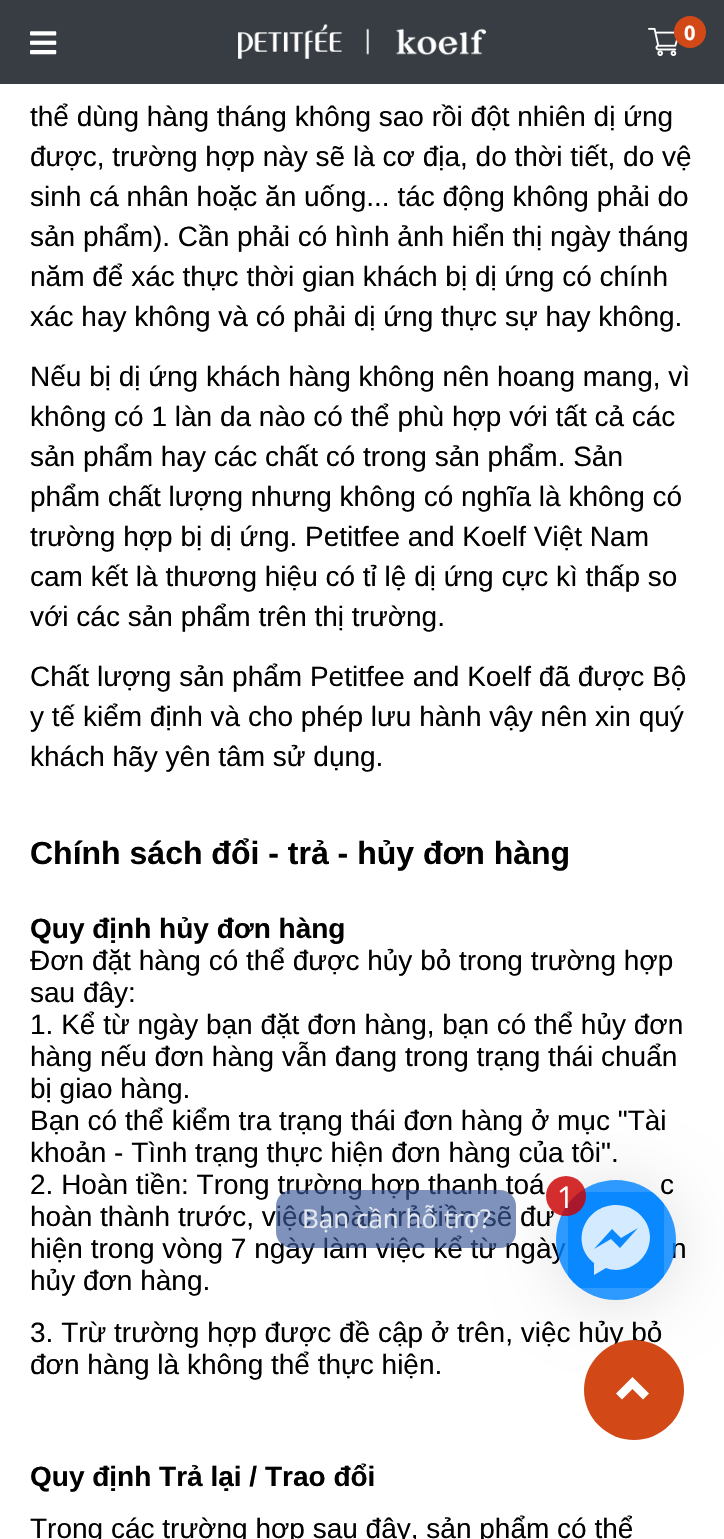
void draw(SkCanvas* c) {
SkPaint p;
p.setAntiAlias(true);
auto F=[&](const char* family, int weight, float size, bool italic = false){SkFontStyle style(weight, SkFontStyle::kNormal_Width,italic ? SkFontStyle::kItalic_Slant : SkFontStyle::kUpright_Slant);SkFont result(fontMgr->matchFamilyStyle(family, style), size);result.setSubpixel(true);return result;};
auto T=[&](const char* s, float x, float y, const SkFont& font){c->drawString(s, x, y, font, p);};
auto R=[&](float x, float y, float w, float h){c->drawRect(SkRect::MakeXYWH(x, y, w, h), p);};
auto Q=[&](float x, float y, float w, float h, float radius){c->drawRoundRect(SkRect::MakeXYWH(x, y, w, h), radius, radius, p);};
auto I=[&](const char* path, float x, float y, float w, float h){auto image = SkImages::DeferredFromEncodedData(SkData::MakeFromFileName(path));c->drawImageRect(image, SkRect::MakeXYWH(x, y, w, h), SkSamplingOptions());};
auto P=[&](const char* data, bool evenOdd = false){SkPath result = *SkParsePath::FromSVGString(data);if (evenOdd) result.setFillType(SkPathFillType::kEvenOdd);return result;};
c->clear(0xffffffff);
p.setColor(0xe621282e);
R(0,0,724,84);
I("1.png",30,31,27,24);
I("2.png",238,24,248,35);
I("3.png",648,27,30,29);
p.setColor(0xffd34817);
c->drawCircle(690,32,16,p);
auto f1 = F("Open Sans",700,20);
p.setColor(0xffffffff);
T("0",684,40,f1);
auto f2 = F("Liberation Sans",400,28);
p.setColor(0xff000000);
T("thể dùng hàng tháng không sao rồi đột nhiên dị ứng",30,126,f2);
T("được, trường hợp này sẽ là cơ địa, do thời tiết, do vệ",30,166,f2);
T("sinh cá nhân hoặc ăn uống... tác động không phải do",30,206,f2);
T("sản phẩm). Cần phải có hình ảnh hiển thị ngày tháng",30,246,f2);
T("năm để xác thực thời gian khách bị dị ứng có chính",30,286,f2);
T("xác hay không và có phải dị ứng thực sự hay không.",30,326,f2);
T("Nếu bị dị ứng khách hàng không nên hoang mang, vì",30,386,f2);
T("không có 1 làn da nào có thể phù hợp với tất cả các",30,426,f2);
T("sản phẩm hay các chất có trong sản phẩm. Sản",30,466,f2);
T("phẩm chất lượng nhưng không có nghĩa là không có",30,506,f2);
T("trường hợp bị dị ứng. Petitfee and Koelf Việt Nam",30,546,f2);
T("cam kết là thương hiệu có tỉ lệ dị ứng cực kì thấp so",30,586,f2);
T("với các sản phẩm trên thị trường.",30,626,f2);
T("Chất lượng sản phẩm Petitfee and Koelf đã được Bộ",30,686,f2);
T("y tế kiểm định và cho phép lưu hành vậy nên xin quý",30,726,f2);
T("khách hãy yên tâm sử dụng.",30,766,f2);
auto f3 = F("Liberation Sans",700,32);
T("Chính sách đổi - trả - hủy đơn hàng",30,864,f3);
auto f4 = F("Liberation Sans",700,28);
T("Quy định hủy đơn hàng",30,938,f4);
T("Đơn đặt hàng có thể được hủy bỏ trong trường hợp",30,970,f2);
T("sau đây:",30,1002,f2);
T("1. Kể từ ngày bạn đặt đơn hàng, bạn có thể hủy đơn",30,1034,f2);
T("hàng nếu đơn hàng vẫn đang trong trạng thái chuẩn",30,1066,f2);
T("bị giao hàng.",30,1098,f2);
T("Bạn có thể kiểm tra trạng thái đơn hàng ở mục \"Tài",30,1130,f2);
T("khoản - Tình trạng thực hiện đơn hàng của tôi\".",30,1162,f2);
T("2. Hoàn tiền: Trong trường hợp thanh toá",30,1194,f2);
T("c",660,1194,f2);
T("hoàn thành trước, việc hoàn trả tiền sẽ đư",30,1226,f2);
T("hiện trong vòng 7 ngày làm việc kể từ ngày",30,1258,f2);
T("n",671,1258,f2);
T("hủy đơn hàng.",30,1290,f2);
T("3. Trừ trường hợp được đề cập ở trên, việc hủy bỏ",30,1342,f2);
T("đơn hàng là không thể thực hiện.",30,1374,f2);
T("Quy định Trả lại / Trao đổi",30,1486,f4);
T("Trong các trường hợp sau đây, sản phẩm có thể",30,1538,f2);
c->save();
c->clipPath(P("M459 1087h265v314h-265zm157 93c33 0 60 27 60 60c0 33-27 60-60 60c-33 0-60-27-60-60c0-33 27-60 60-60z",true),true);
p.setColor(0x21000000);
p.setMaskFilter(SkMaskFilter::MakeBlur(kNormal_SkBlurStyle, 32));
c->drawRoundRect(SkRect::MakeXYWH(556,1184,120,120),60,60,p);
p.setMaskFilter(nullptr);
c->restore();
p.setColor(0xd10084ff);
c->drawCircle(616,1240,60,p);
c->save();
c->clipPath(P("M616 1180c33 0 60 27 60 60c0 33-27 60-60 60c-33 0-60-27-60-60c0-33 27-60 60-60z"),true);
R(568,1192,96,96);
c->restore();
p.setColor(0xd1ffffff);
c->drawPath(P("M616 1205c-31 0-47 38-22 58v12l12-7c3 1 7 2 10 2c19 0 34-15 34-33c0-17-15-32-34-32zm4 43l-9-9l-17 10l18-20l9 9l17-10z"),p);
p.setColor(0xd1cc0000);
c->drawCircle(566,1196,20,p);
auto f5 = F("Open Sans",400,30);
p.setColor(0xffffffff);
T("1",557,1208,f5);
p.setColor(0xa83b5998);
Q(276,1190,240,58,16);
auto f6 = F("Open Sans",400,26);
p.setColor(0xffe5e9f0);
T("Bạn cần hỗ trợ?",302,1228,f6);
p.setColor(0xffd34817);
c->drawCircle(634,1390,50,p);
p.setColor(0xffffffff);
c->drawPath(P("M649 1393.5l-6 6l-10.5-10.5l-10.5 10.5l-6-6l16.5-16.5z"),p);
}
